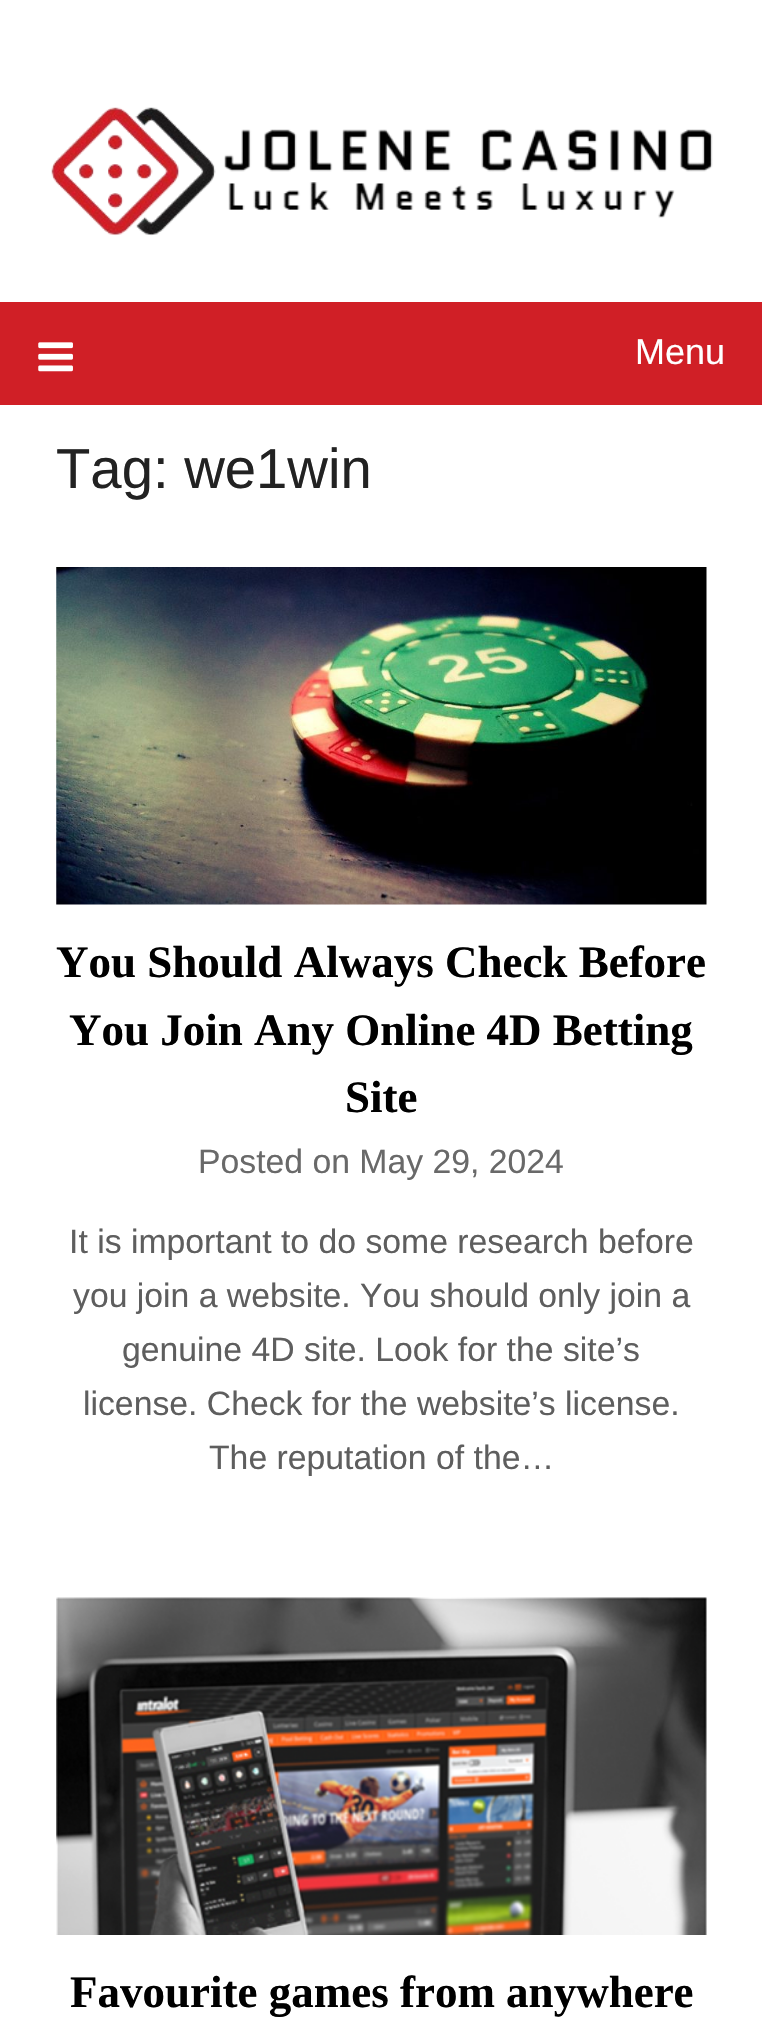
void draw(SkCanvas* c) {
SkPaint p;
p.setAntiAlias(true);
auto F=[&](const char* family, int weight, float size, bool italic = false){SkFontStyle style(weight, SkFontStyle::kNormal_Width,italic ? SkFontStyle::kItalic_Slant : SkFontStyle::kUpright_Slant);SkFont result(fontMgr->matchFamilyStyle(family, style), size);result.setSubpixel(true);return result;};
auto T=[&](const char* s, float x, float y, const SkFont& font){c->drawString(s, x, y, font, p);};
auto R=[&](float x, float y, float w, float h){c->drawRect(SkRect::MakeXYWH(x, y, w, h), p);};
auto I=[&](const char* path, float x, float y, float w, float h){auto image = SkImages::DeferredFromEncodedData(SkData::MakeFromFileName(path));c->drawImageRect(image, SkRect::MakeXYWH(x, y, w, h), SkSamplingOptions());};
c->clear(0xffffffff);
I("1.png",51,107,662,129);
p.setColor(0xffd01f26);
R(0,302,762,103);
I("2.png",38,342,35,30);
auto f1 = F("Liberation Sans",400,36);
p.setColor(0xffffffff);
T("Menu",635,364,f1);
auto f2 = F("Liberation Sans",400,56.25);
p.setColor(0xff222222);
T("Tag: we1win",56,488,f2);
I("3.png",56,567,651,338);
auto f3 = F("Liberation Serif",700,45);
p.setColor(0xff000000);
T("You Should Always Check Before",56,977,f3);
T("You Join Any Online 4D Betting",69,1045,f3);
T("Site",345,1112,f3);
auto f4 = F("Liberation Sans",400,33.75);
p.setColor(0xff696969);
T("Posted on May 29, 2024",198,1173,f4);
p.setColor(0xff5e5e5e);
T("It is important to do some research before",69,1253,f4);
T("you join a website. You should only join a",73,1307,f4);
T("genuine 4D site. Look for the site’s",122,1361,f4);
T("license. Check for the website’s license.",83,1415,f4);
T("The reputation of the…",209,1469,f4);
I("4.png",56,1597,651,338);
p.setColor(0xff000000);
T("Favourite games from anywhere",70,2007,f3);
}
